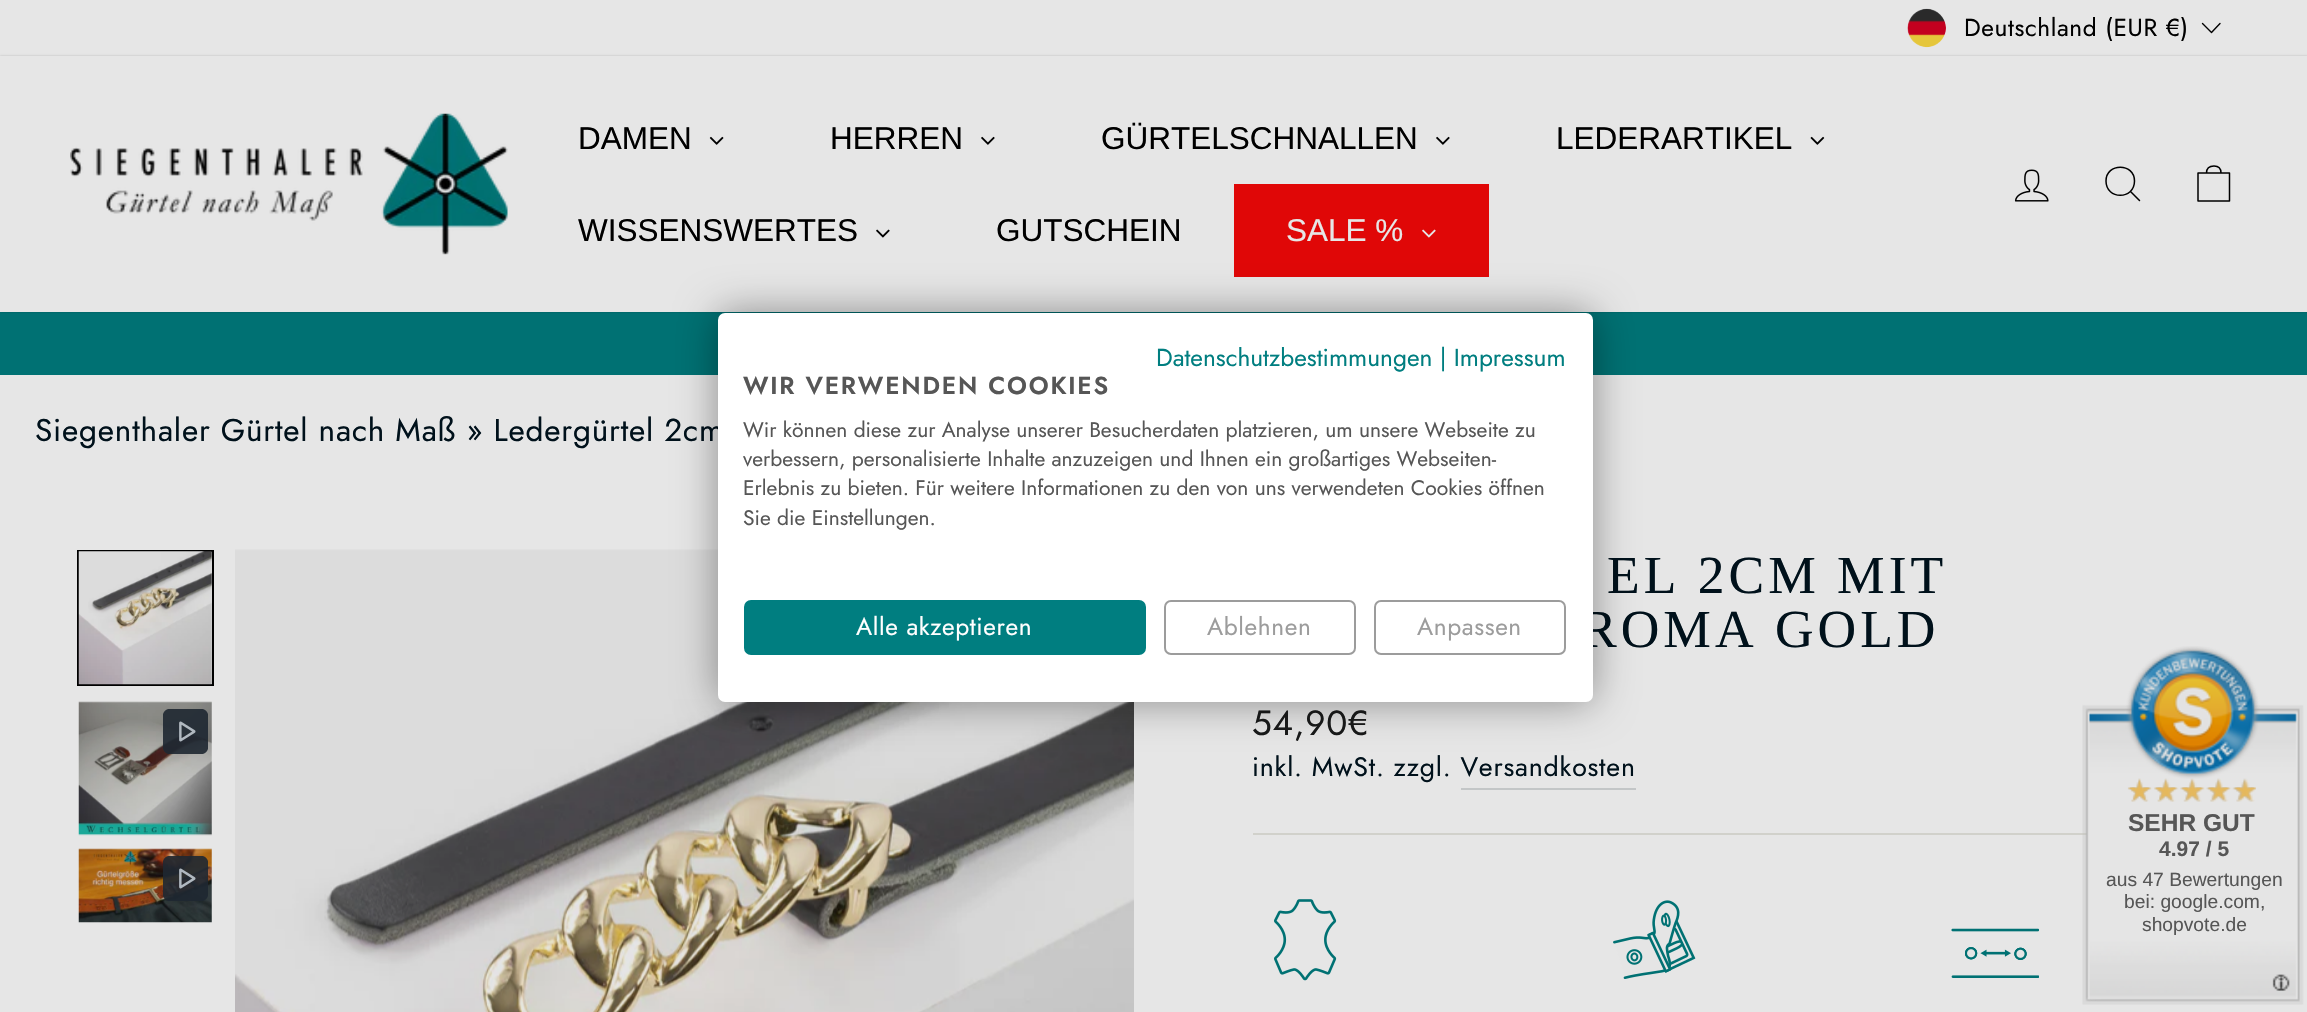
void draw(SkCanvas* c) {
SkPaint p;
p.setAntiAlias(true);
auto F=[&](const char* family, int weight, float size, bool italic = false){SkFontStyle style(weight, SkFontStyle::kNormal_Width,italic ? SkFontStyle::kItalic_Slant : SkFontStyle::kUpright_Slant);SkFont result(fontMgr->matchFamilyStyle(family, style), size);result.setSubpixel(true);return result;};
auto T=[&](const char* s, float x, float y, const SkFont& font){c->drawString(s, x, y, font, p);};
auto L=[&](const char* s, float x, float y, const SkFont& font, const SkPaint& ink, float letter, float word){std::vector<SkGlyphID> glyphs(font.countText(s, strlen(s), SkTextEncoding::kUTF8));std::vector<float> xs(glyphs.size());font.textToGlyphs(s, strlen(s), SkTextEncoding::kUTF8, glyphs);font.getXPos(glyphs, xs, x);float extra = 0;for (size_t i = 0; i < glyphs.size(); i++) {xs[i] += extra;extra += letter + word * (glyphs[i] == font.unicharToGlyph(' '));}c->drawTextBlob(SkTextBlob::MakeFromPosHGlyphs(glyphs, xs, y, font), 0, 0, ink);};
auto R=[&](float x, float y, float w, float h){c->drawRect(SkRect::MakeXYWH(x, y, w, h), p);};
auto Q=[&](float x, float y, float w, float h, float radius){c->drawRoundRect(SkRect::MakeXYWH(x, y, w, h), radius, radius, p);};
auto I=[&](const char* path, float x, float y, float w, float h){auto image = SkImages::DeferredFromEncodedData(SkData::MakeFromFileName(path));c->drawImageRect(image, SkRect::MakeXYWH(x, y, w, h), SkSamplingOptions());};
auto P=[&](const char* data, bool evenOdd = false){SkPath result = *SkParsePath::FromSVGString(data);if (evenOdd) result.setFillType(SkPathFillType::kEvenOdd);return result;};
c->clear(0xffe6e6e6);
I("1.png",1907,8,39,40);
auto f1 = F("Jost",400,24.5);
p.setColor(0xff000000);
L("Deutschland (EUR €)",1964,36,f1,p,.6,0);
p.setStroke(true);
p.setStrokeWidth(1.4);
p.setStrokeCap(SkPaint::kRound_Cap);
p.setStrokeJoin(SkPaint::kRound_Join);
c->drawPath(P("M2202.5 23.5l9 9l8.5-9"),p);
p.setStroke(false);
p.setColor(0xff007173);
R(0,312,2307,63);
p.setColor(0x33000000);
p.setMaskFilter(SkMaskFilter::MakeBlur(kNormal_SkBlurStyle, 1));
c->drawRect(SkRect::MakeXYWH(0,56,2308,256),p);
p.setMaskFilter(nullptr);
p.setColor(0xffe6e6e6);
R(0,56,2307,256);
I("2.png",70,113,438,142);
auto f2 = F("Liberation Sans",400,31.5);
p.setColor(0xff000000);
T("DAMEN",578,149,f2);
I("3.png",709,136,15,9);
T("HERREN",830,149,f2);
I("4.png",981,136,14,9);
T("GÜRTELSCHNALLEN",1101,149,f2);
I("4.png",1436,136,14,9);
T("LEDERARTIKEL",1556,149,f2);
I("5.png",1810,136,15,9);
T("WISSENSWERTES",578,241,f2);
I("6.png",876,229,14,9);
T("GUTSCHEIN",996,241,f2);
p.setColor(0xffe00707);
R(1234,184,255,93);
p.setColor(0xffe6e6e6);
T("SALE %",1286,241,f2);
I("7.png",1422,229,14,9);
I("8.png",2014,169,35,33);
p.setStroke(true);
p.setStrokeWidth(1.5);
p.setColor(0xff000000);
c->drawPath(P("M2134.5 181c0 19-28.5 19-28.5 0c0-18.5 28.5-18.5 28.5 0zm5 19.5l-9-9"),p);
c->drawPath(P("M2198 173h31.5v28h-31.5zm8.5 0c0-5.5 3-7 7.5-7c4 0 7 1.5 7 7"),p);
auto f3 = F("Jost",400,31.5);
p.setStroke(false);
p.setColor(0xff00111b);
L("Siegenthaler Gürtel nach Maß » Ledergürtel 2cm",35,441,f3,p,.8,0);
p.setStroke(true);
p.setStrokeWidth(2);
p.setStrokeCap(SkPaint::kButt_Cap);
p.setStrokeJoin(SkPaint::kMiter_Join);
p.setColor(0xff000000);
c->drawRect(SkRect::MakeXYWH(78,551,135,134),p);
I("9.png",78,551,134,134);
I("10.png",78,701,134,135);
I("11.png",163,709,45,45);
I("12.png",78,848,134,75);
I("13.png",163,856,45,45);
I("14.png",235,549,899,463);
auto f4 = F("Liberation Serif",400,53.5);
p.setStroke(false);
p.setColor(0xff00111b);
L("EL 2CM MIT",1607,593,f4,p,4,0);
L("ROMA GOLD",1581,647,f4,p,4,0);
auto f5 = F("Jost",400,35);
p.setColor(0xff191a1a);
L("54,90€",1252,735,f5,p,.8,0);
auto f6 = F("Jost",400,26.75);
p.setColor(0xff00111b);
L("inkl. MwSt. zzgl. Versandkosten",1252,776,f6,p,.8,0);
p.setColor(0xffc3c6c7);
R(1461,788,175,2);
p.setColor(0xffd1d1cb);
R(1253,833,834,2);
I("15.png",1274,899,63,82);
I("16.png",1613,900,83,79);
I("17.png",1951,928,88,50);
p.setColor(0x66000000);
p.setMaskFilter(SkMaskFilter::MakeBlur(kNormal_SkBlurStyle, 21));
c->drawRoundRect(SkRect::MakeXYWH(718,313,875,389),7,7,p);
p.setMaskFilter(nullptr);
p.setColor(0xffffffff);
Q(718,313,875,389,7);
p.setColor(0xff007e80);
T("Datenschutzbestimmungen | Impressum",1156,366,f1);
auto f7 = F("Jost",600,24.5);
p.setColor(0xff565656);
L("WIR VERWENDEN COOKIES",743,394,f7,p,1.8,0);
auto f8 = F("Jost",400,21);
T("Wir können diese zur Analyse unserer Besucherdaten platzieren, um unsere Webseite zu",743,437,f8);
T("verbessern, personalisierte Inhalte anzuzeigen und Ihnen ein großartiges Webseiten-",743,466,f8);
T("Erlebnis zu bieten. Für weitere Informationen zu den von uns verwendeten Cookies öffnen",743,495,f8);
T("Sie die Einstellungen.",743,525,f8);
p.setColor(0xff007e80);
c->drawRoundRect(SkRect::MakeXYWH(745,601,400,53),6,6,p);
p.setStroke(true);
c->drawRoundRect(SkRect::MakeXYWH(745,601,400,53),6,6,p);
p.setStroke(false);
p.setColor(0xffffffff);
L("Alle akzeptieren",856,635,f1,p,.6,0);
p.setStroke(true);
p.setColor(0xff9c9c9c);
c->drawRoundRect(SkRect::MakeXYWH(1165,601,190,53),6,6,p);
p.setStroke(false);
L("Ablehnen",1207,635,f1,p,.6,0);
p.setStroke(true);
c->drawRoundRect(SkRect::MakeXYWH(1375,601,190,53),6,6,p);
p.setStroke(false);
L("Anpassen",1417,635,f1,p,.6,0);
I("18.png",2082,646,222,359);
I("19.png",2128,778,128,24);
auto f9 = F("Liberation Sans",700,24.5);
p.setColor(0xff565656);
T("SEHR GUT",2128,831,f9);
auto f10 = F("Liberation Sans",700,21);
T("4.97 / 5",2159,856,f10);
auto f11 = F("Liberation Sans",400,19.25);
T("aus 47 Bewertungen",2106,886,f11);
T("bei: google.com,",2124,908,f11);
T("shopvote.de",2142,931,f11);
}
